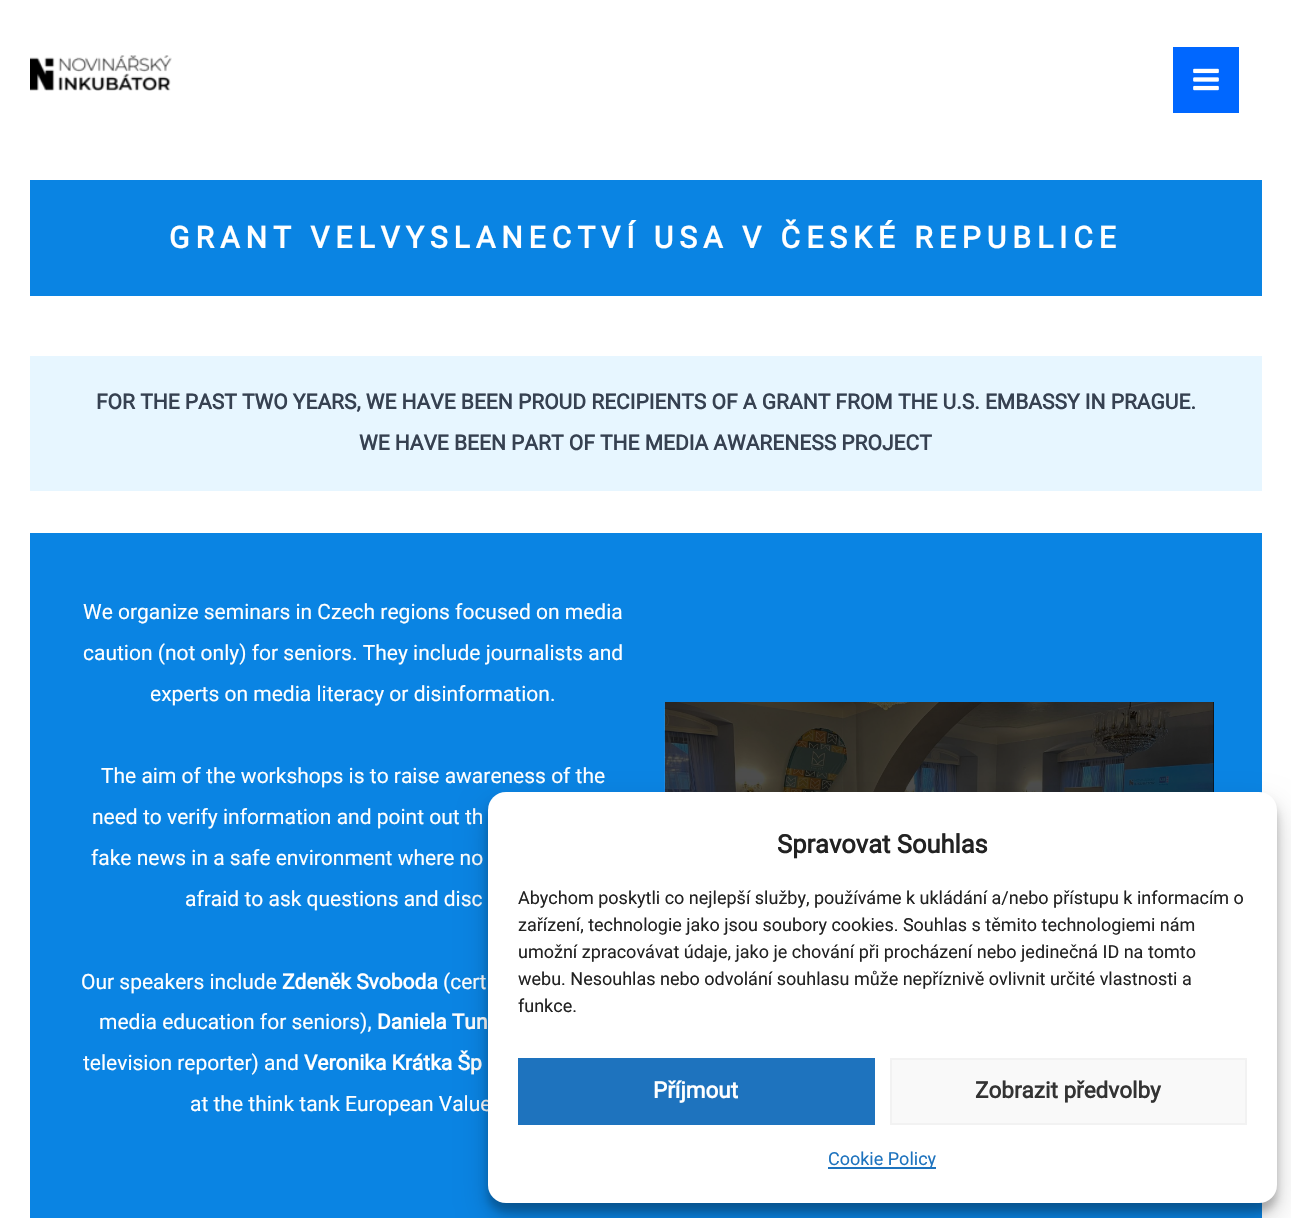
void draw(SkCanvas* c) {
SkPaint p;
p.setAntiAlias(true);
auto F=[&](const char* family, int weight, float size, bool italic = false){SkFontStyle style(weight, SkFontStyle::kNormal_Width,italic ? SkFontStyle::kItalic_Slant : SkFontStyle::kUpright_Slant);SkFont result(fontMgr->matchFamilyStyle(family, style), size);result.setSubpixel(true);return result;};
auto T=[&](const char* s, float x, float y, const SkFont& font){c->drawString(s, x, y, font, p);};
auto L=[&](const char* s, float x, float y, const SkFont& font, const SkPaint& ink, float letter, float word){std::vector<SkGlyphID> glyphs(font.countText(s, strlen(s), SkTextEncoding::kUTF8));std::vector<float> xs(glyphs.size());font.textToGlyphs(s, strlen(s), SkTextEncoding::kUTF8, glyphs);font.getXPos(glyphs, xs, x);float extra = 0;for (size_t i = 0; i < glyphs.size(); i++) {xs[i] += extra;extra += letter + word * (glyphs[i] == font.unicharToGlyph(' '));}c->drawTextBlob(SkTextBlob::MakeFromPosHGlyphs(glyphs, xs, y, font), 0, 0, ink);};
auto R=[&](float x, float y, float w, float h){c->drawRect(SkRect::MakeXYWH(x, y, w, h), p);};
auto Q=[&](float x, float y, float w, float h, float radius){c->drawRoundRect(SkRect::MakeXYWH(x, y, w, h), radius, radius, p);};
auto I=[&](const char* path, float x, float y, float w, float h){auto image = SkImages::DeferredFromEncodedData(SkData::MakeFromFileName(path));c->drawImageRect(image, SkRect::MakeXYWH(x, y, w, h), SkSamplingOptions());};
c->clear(0xffffffff);
I("1.png",30,55,142,36);
p.setColor(0xff0067ff);
R(1173,47,66,66);
I("2.png",1193,68,26,23);
p.setColor(0xff0a84e3);
R(30,180,1232,116);
auto f1 = F("Roboto",700,30);
p.setColor(0xffffffff);
L("GRANT VELVYSLANECTVÍ USA V ČESKÉ REPUBLICE",169,248,f1,p,6,0);
p.setColor(0xffe7f6ff);
R(30,356,1232,135);
auto f2 = F("Roboto",700,21);
p.setColor(0xff364151);
T("FOR THE PAST TWO YEARS, WE HAVE BEEN PROUD RECIPIENTS OF A GRANT FROM THE U.S. EMBASSY IN PRAGUE.",96,409,f2);
T("WE HAVE BEEN PART OF THE MEDIA AWARENESS PROJECT",359,450,f2);
p.setColor(0xff0a84e3);
R(30,533,1232,685);
auto f3 = F("Roboto",400,21);
p.setColor(0xffffffff);
T("We organize seminars in Czech regions focused on media",83,619,f3);
T("caution (not only) for seniors. They include journalists and",83,660,f3);
T("experts on media literacy or disinformation.",150,701,f3);
T("The aim of the workshops is to raise awareness of the",101,783,f3);
T("need to verify information and point out th",92,824,f3);
T("fake news in a safe environment where no",91,865,f3);
T("afraid to ask questions and disc",185,906,f3);
T("Our speakers include",81,989,f3);
T("Zdeněk Svoboda",282,989,f2);
T("(cert",443,989,f3);
T("media education for seniors),",99,1029,f3);
T("Daniela Tun",377,1029,f2);
T("television reporter) and",83,1070,f3);
T("Veronika Krátka Šp",304,1070,f2);
T("at the think tank European Value",190,1111,f3);
p.setColor(0xff000000);
R(665,702,549,90);
I("3.png",664,702,550,90);
p.setColor(0x3b000000);
p.setMaskFilter(SkMaskFilter::MakeBlur(kNormal_SkBlurStyle, 4.5));
c->drawRoundRect(SkRect::MakeXYWH(488,801,789,411),18,18,p);
p.setMaskFilter(nullptr);
p.setColor(0x30000000);
p.setMaskFilter(SkMaskFilter::MakeBlur(kNormal_SkBlurStyle, 15));
c->drawRoundRect(SkRect::MakeXYWH(488,807,789,411),18,18,p);
p.setMaskFilter(nullptr);
p.setColor(0xffffffff);
Q(488,792,789,411,18);
auto f4 = F("Roboto",700,25.5);
p.setColor(0xff222222);
T("Spravovat Souhlas",777,853,f4);
auto f5 = F("Roboto",400,18);
T("Abychom poskytli co nejlepší služby, používáme k ukládání a/nebo přístupu k informacím o",518,904,f5);
T("zařízení, technologie jako jsou soubory cookies. Souhlas s těmito technologiemi nám",518,931,f5);
T("umožní zpracovávat údaje, jako je chování při procházení nebo jedinečná ID na tomto",518,958,f5);
T("webu. Nesouhlas nebo odvolání souhlasu může nepříznivě ovlivnit určité vlastnosti a",518,985,f5);
T("funkce.",518,1012,f5);
p.setColor(0xff1e73be);
R(518,1058,357,67);
auto f6 = F("Roboto",700,22.5);
p.setColor(0xffffffff);
T("Příjmout",653,1098,f6);
p.setColor(0xfff9f9f9);
c->drawRect(SkRect::MakeXYWH(891,1059,355,65),p);
p.setStroke(true);
p.setStrokeWidth(2);
p.setColor(0xfff2f2f2);
c->drawRect(SkRect::MakeXYWH(891,1059,355,65),p);
p.setStroke(false);
p.setColor(0xff333333);
T("Zobrazit předvolby",975,1098,f6);
p.setColor(0xff1e73be);
R(828,1167,108,2);
T("Cookie Policy",828,1165,f5);
}
